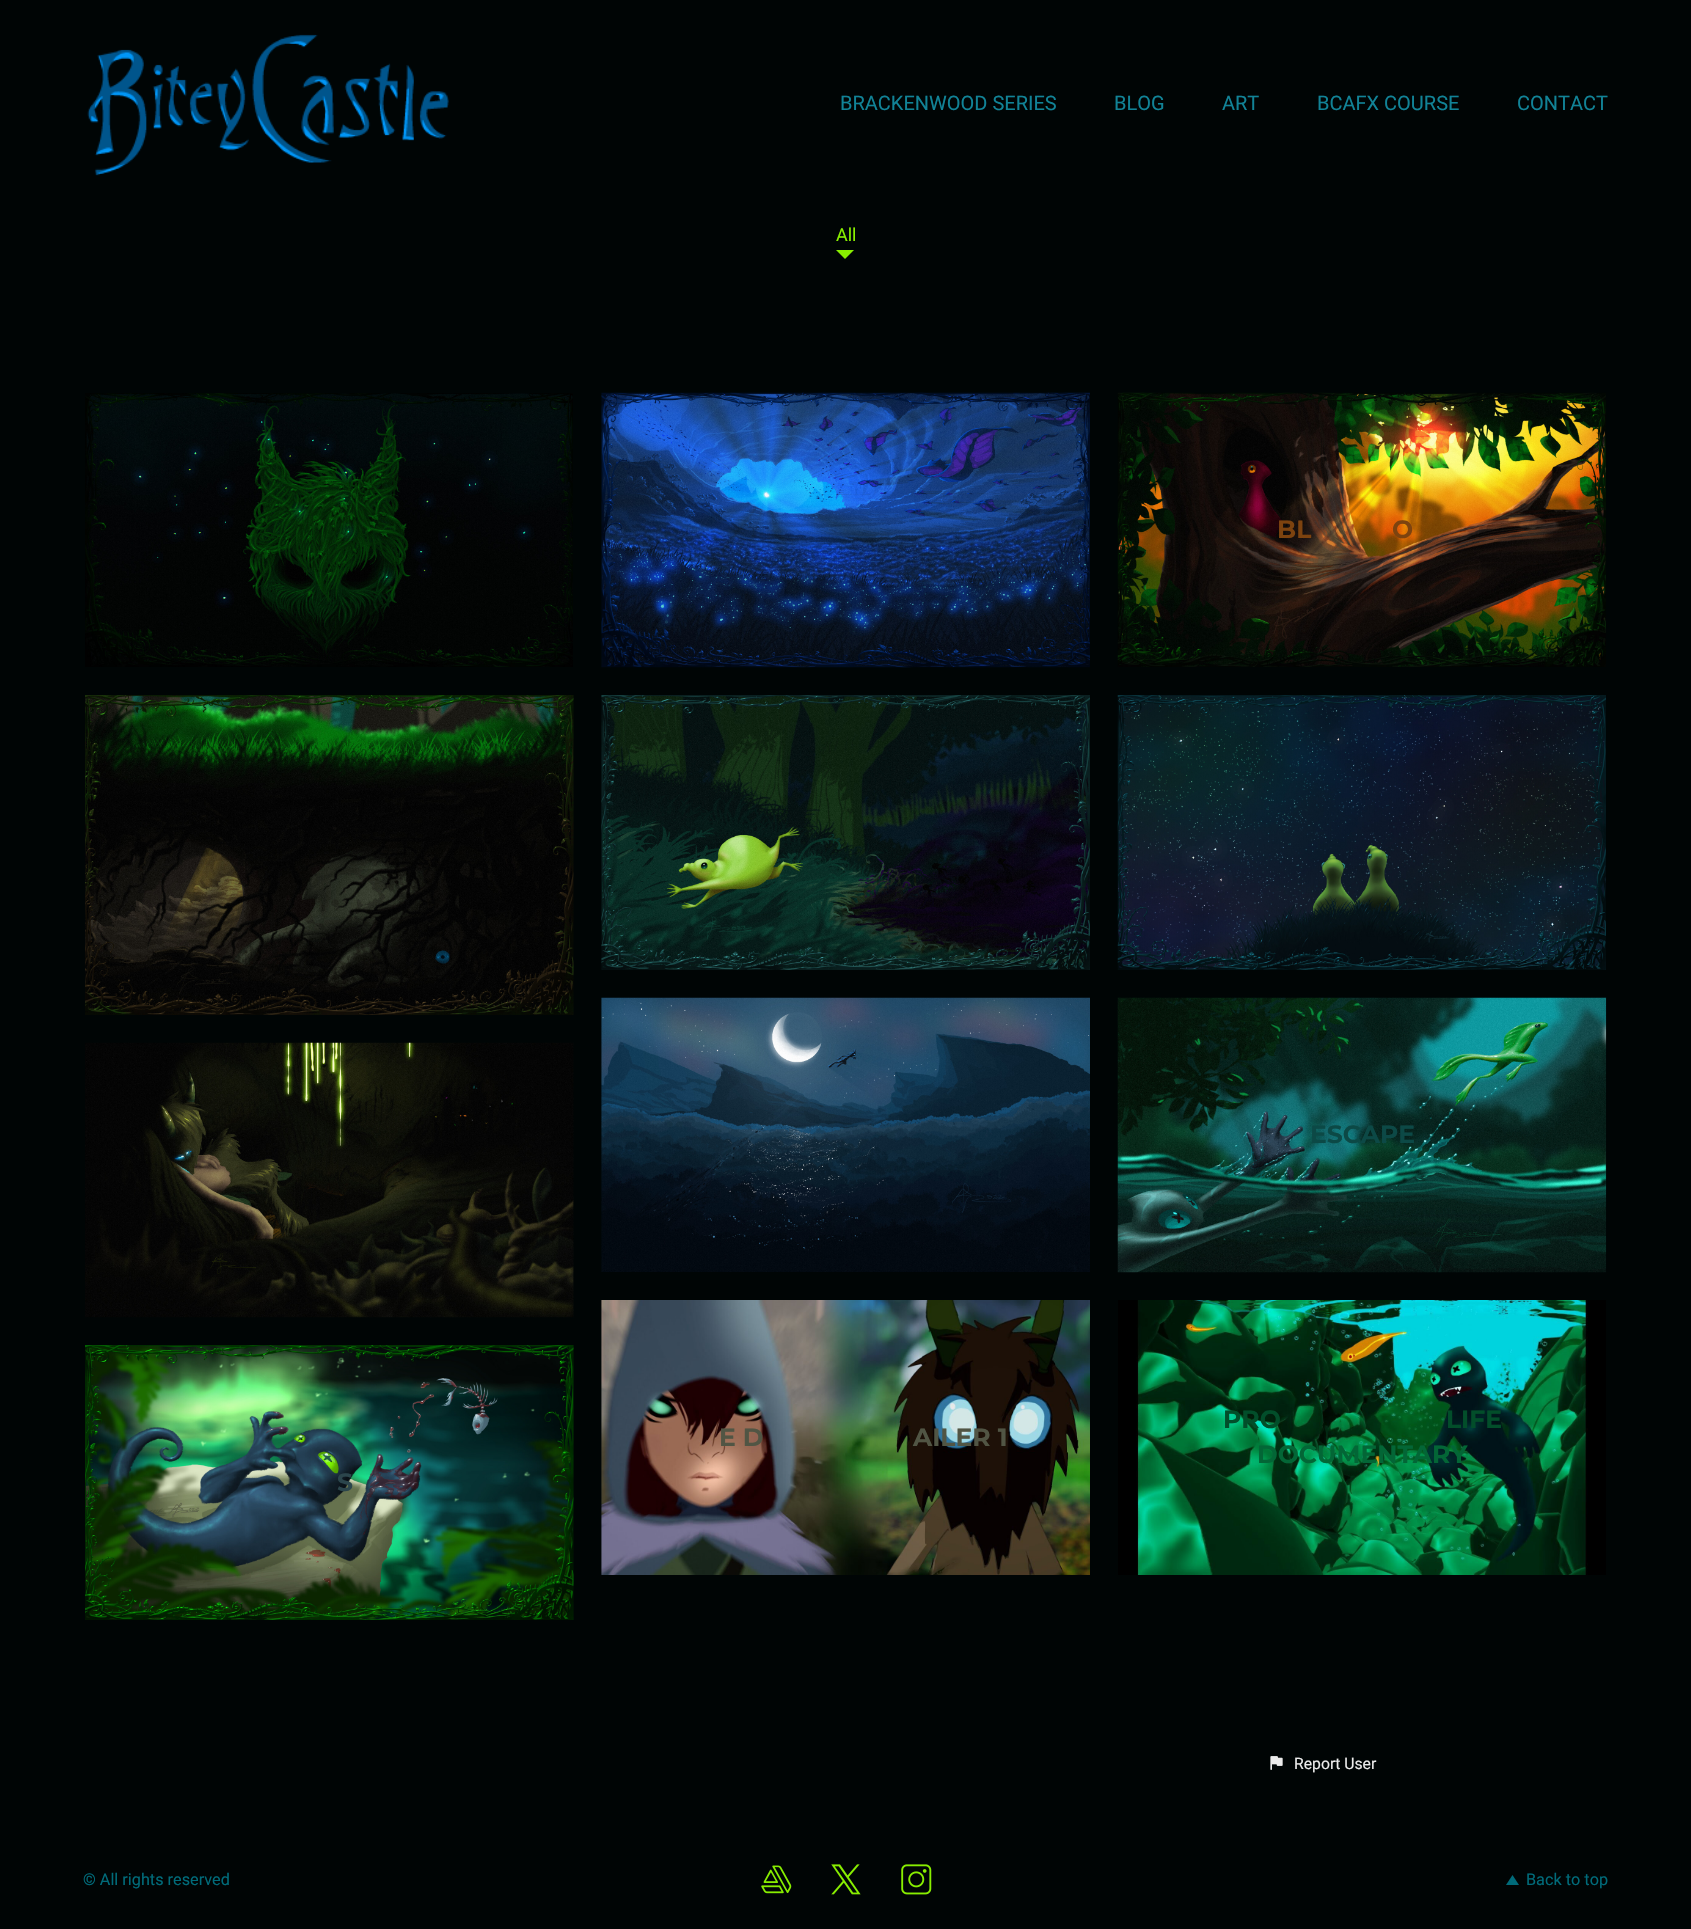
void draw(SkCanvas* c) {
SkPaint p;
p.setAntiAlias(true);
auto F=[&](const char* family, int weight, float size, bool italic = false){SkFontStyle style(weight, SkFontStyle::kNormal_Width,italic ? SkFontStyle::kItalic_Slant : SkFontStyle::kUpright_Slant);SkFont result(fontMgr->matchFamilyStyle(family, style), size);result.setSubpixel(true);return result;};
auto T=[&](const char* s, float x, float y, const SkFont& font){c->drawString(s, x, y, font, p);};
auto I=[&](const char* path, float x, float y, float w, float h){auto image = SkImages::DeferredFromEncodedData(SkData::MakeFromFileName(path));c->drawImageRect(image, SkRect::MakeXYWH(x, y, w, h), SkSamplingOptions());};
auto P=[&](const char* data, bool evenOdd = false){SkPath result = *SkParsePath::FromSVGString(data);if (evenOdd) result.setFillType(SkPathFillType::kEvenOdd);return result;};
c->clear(0xff000505);
I("1.png",87,34,362,142);
auto f1 = F("Roboto",400,20);
p.setColor(0xff118397);
T("BRACKENWOOD SERIES",840,110,f1);
T("BLOG",1114,110,f1);
T("ART",1222,110,f1);
T("BCAFX COURSE",1317,110,f1);
T("CONTACT",1517,110,f1);
auto f2 = F("Roboto",400,18);
p.setColor(0xff88ee00);
T("All",836,241,f2);
c->drawPath(P("M836 250h18l-9 9z"),p);
I("2.png",85,393,488,274);
I("3.png",601,392,489,276);
I("4.png",1117,392,489,275);
auto f3 = F("Montserrat",700,25);
p.setColor(0xff7d430f);
T("BL",1277,538,f3);
T("O",1392,538,f3);
I("5.png",85,695,489,320);
I("6.png",601,695,489,275);
I("7.png",1117,695,489,275);
I("8.png",85,1042,489,276);
I("9.png",601,997,489,275);
I("10.png",1117,997,490,276);
p.setColor(0xff0c4946);
T("ESCAPE",1310,1143,f3);
I("11.png",601,1300,489,275);
p.setColor(0xff515544);
T("E D",719,1446,f3);
T("AILER 1",913,1446,f3);
I("12.png",1118,1300,488,275);
p.setColor(0xff024e2a);
T("PRO",1223,1428,f3);
T("LIFE",1446,1428,f3);
p.setColor(0xff036636);
T("DOCUMENTARY",1257,1463,f3);
I("13.png",85,1345,489,275);
p.setColor(0xff2b454c);
T("S",337,1491,f3);
I("14.png",1270,1756,13,14);
auto f4 = F("Roboto",400,15.75);
p.setColor(0xffebebeb);
T("Report User",1294,1769,f4);
auto f5 = F("Roboto",400,16.25);
p.setColor(0xff006b7a);
T("© All rights reserved",83,1885,f5);
I("15.png",761,1865,31,29);
I("16.png",831,1864,30,31);
I("17.png",901,1864,31,31);
c->drawPath(P("M1519 1885h-13l6.5-10z"),p);
T("Back to top",1526,1885,f5);
}
